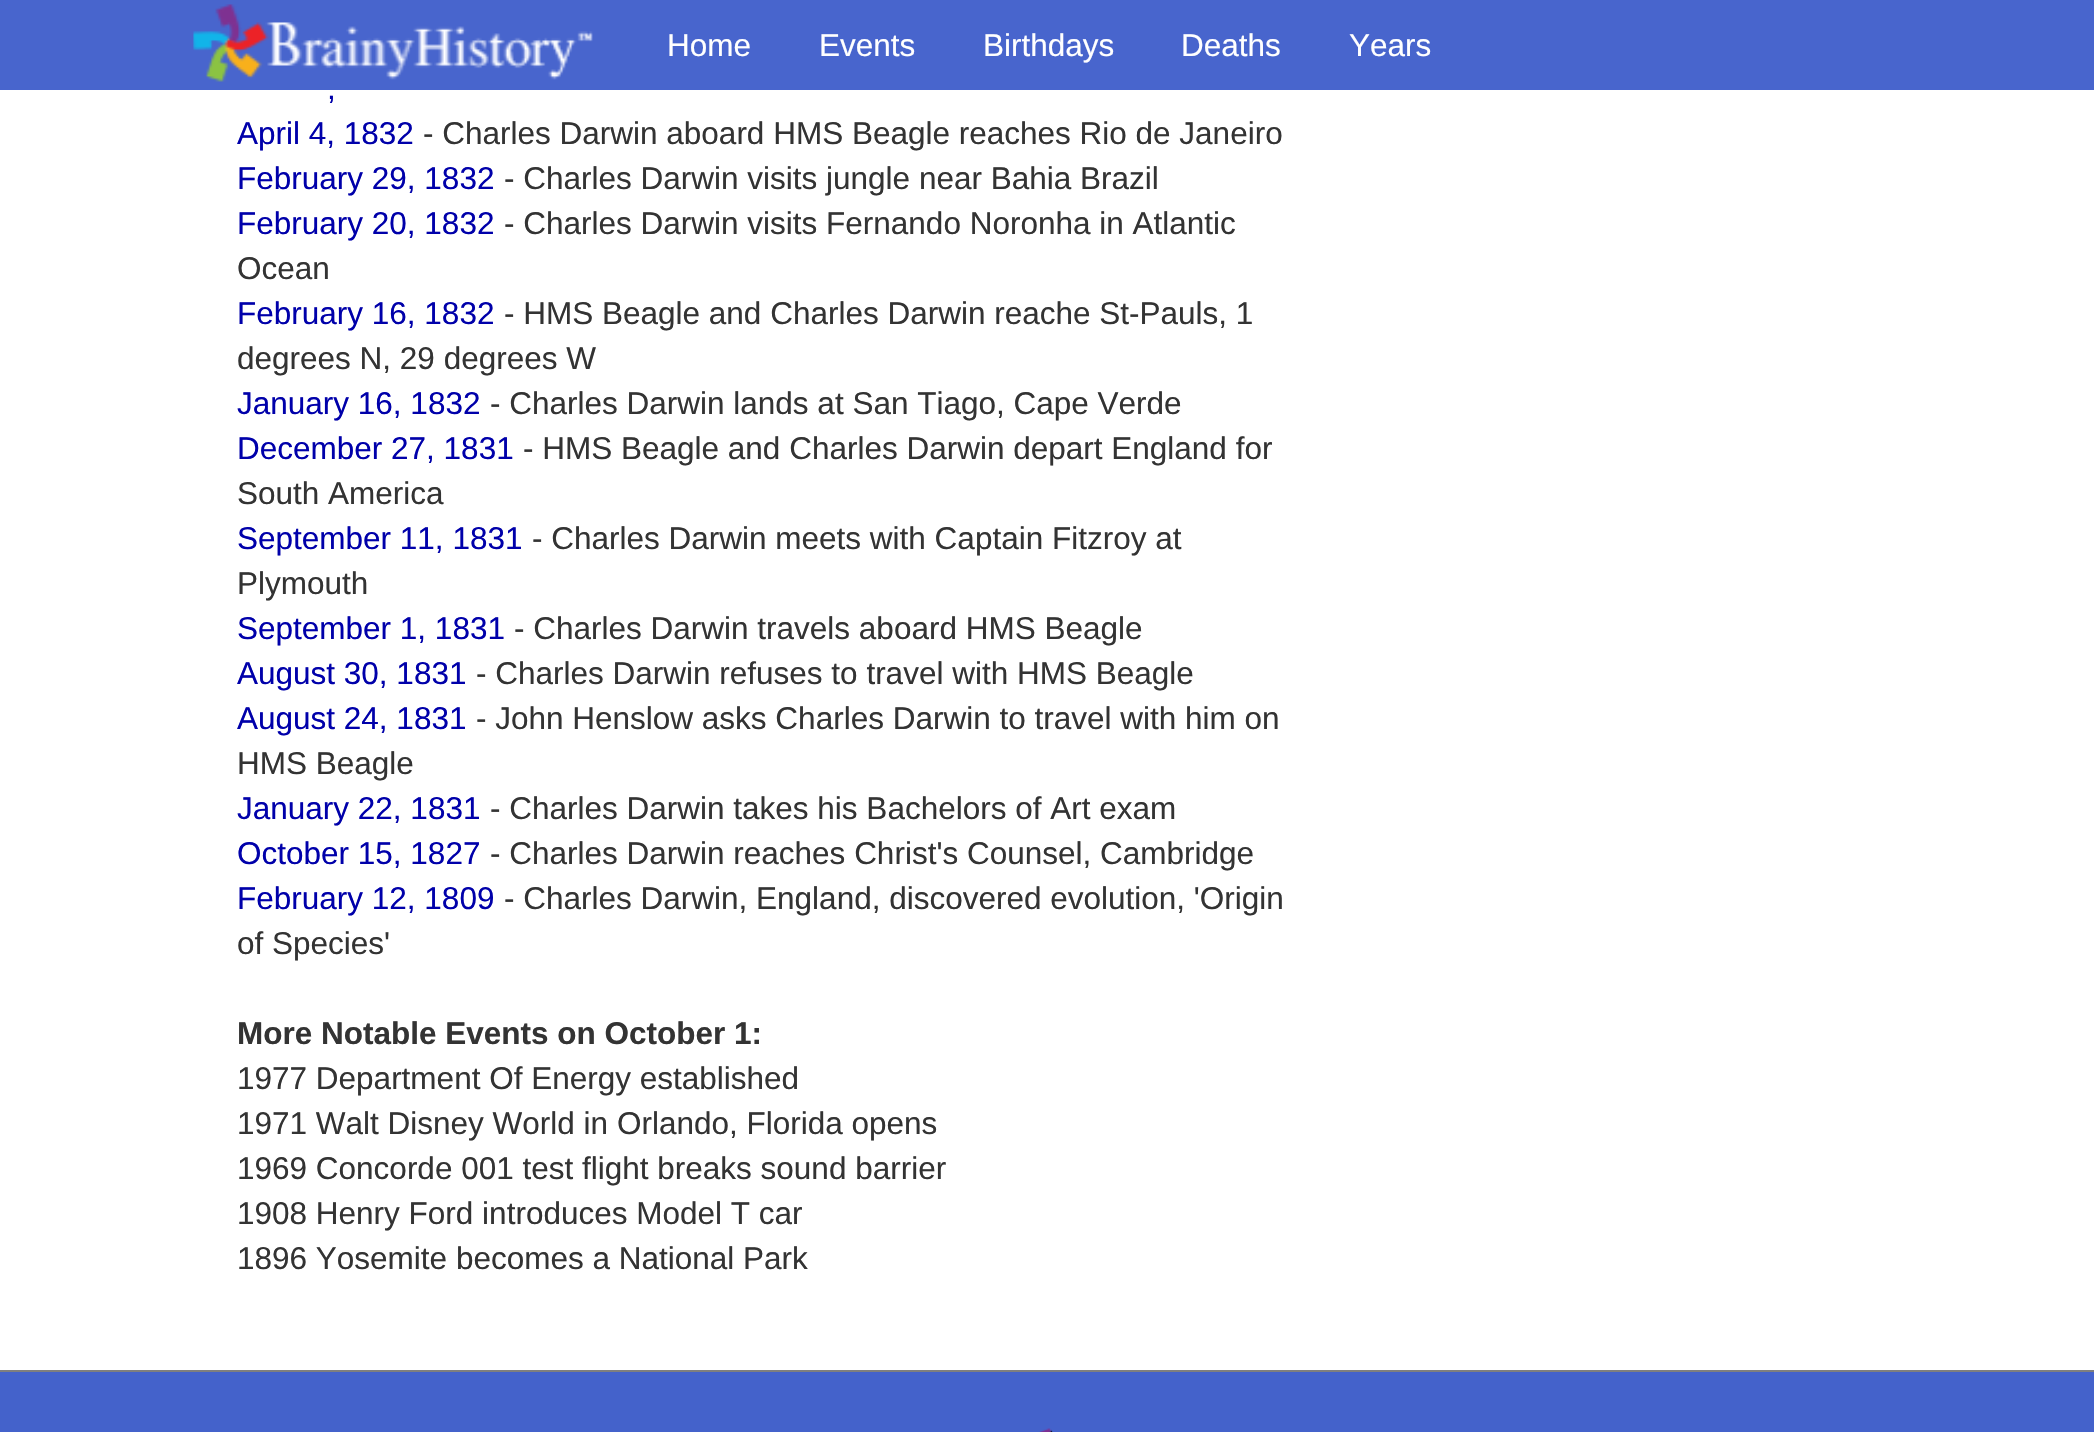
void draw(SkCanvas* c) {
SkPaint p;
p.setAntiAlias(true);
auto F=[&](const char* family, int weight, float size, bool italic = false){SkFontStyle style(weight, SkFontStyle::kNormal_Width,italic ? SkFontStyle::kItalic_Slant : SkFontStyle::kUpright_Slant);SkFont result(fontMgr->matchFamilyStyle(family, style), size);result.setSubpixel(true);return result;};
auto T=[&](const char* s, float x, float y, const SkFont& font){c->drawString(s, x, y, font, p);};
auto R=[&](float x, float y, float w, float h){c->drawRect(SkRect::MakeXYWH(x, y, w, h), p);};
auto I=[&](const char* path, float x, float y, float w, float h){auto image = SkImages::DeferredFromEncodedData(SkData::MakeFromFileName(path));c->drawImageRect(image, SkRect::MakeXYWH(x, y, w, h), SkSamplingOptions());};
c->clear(0xffffffff);
p.setColor(0xff4865cd);
R(0,0,2094,90);
I("1.png",193,4,400,78);
auto f1 = F("Liberation Sans",400,31.5);
p.setColor(0xffffffff);
T("Home",667,56,f1);
T("Events",819,56,f1);
T("Birthdays",983,56,f1);
T("Deaths",1181,56,f1);
T("Years",1349,56,f1);
p.setColor(0xff0000aa);
T(",",327,99,f1);
T("April 4, 1832",237,144,f1);
p.setColor(0xff333333);
T("- Charles Darwin aboard HMS Beagle reaches Rio de Janeiro",423,144,f1);
p.setColor(0xff0000aa);
T("February 29, 1832",237,189,f1);
p.setColor(0xff333333);
T("- Charles Darwin visits jungle near Bahia Brazil",504,189,f1);
p.setColor(0xff0000aa);
T("February 20, 1832",237,234,f1);
p.setColor(0xff333333);
T("- Charles Darwin visits Fernando Noronha in Atlantic",504,234,f1);
T("Ocean",237,279,f1);
p.setColor(0xff0000aa);
T("February 16, 1832",237,324,f1);
p.setColor(0xff333333);
T("- HMS Beagle and Charles Darwin reache St-Pauls, 1",504,324,f1);
T("degrees N, 29 degrees W",237,369,f1);
p.setColor(0xff0000aa);
T("January 16, 1832",237,414,f1);
p.setColor(0xff333333);
T("- Charles Darwin lands at San Tiago, Cape Verde",490,414,f1);
p.setColor(0xff0000aa);
T("December 27, 1831",237,459,f1);
p.setColor(0xff333333);
T("- HMS Beagle and Charles Darwin depart England for",523,459,f1);
T("South America",237,504,f1);
p.setColor(0xff0000aa);
T("September 11, 1831",237,549,f1);
p.setColor(0xff333333);
T("- Charles Darwin meets with Captain Fitzroy at",532,549,f1);
T("Plymouth",237,594,f1);
p.setColor(0xff0000aa);
T("September 1, 1831",237,639,f1);
p.setColor(0xff333333);
T("- Charles Darwin travels aboard HMS Beagle",514,639,f1);
p.setColor(0xff0000aa);
T("August 30, 1831",237,684,f1);
p.setColor(0xff333333);
T("- Charles Darwin refuses to travel with HMS Beagle",476,684,f1);
p.setColor(0xff0000aa);
T("August 24, 1831",237,729,f1);
p.setColor(0xff333333);
T("- John Henslow asks Charles Darwin to travel with him on",476,729,f1);
T("HMS Beagle",237,774,f1);
p.setColor(0xff0000aa);
T("January 22, 1831",237,819,f1);
p.setColor(0xff333333);
T("- Charles Darwin takes his Bachelors of Art exam",490,819,f1);
p.setColor(0xff0000aa);
T("October 15, 1827",237,864,f1);
p.setColor(0xff333333);
T("- Charles Darwin reaches Christ's Counsel, Cambridge",490,864,f1);
p.setColor(0xff0000aa);
T("February 12, 1809",237,909,f1);
p.setColor(0xff333333);
T("- Charles Darwin, England, discovered evolution, 'Origin",504,909,f1);
T("of Species'",237,954,f1);
auto f2 = F("Liberation Sans",700,31.5);
T("More Notable Events on October 1:",237,1044,f2);
T("1977 Department Of Energy established",237,1089,f1);
T("1971 Walt Disney World in Orlando, Florida opens",237,1134,f1);
T("1969 Concorde 001 test flight breaks sound barrier",237,1179,f1);
T("1908 Henry Ford introduces Model T car",237,1224,f1);
T("1896 Yosemite becomes a National Park",237,1269,f1);
p.setColor(0xff4462cb);
R(0,1372,2094,60);
p.setColor(0xff7f7f7f);
R(0,1370,2094,2);
I("2.png",1039,1428,14,4);
}
